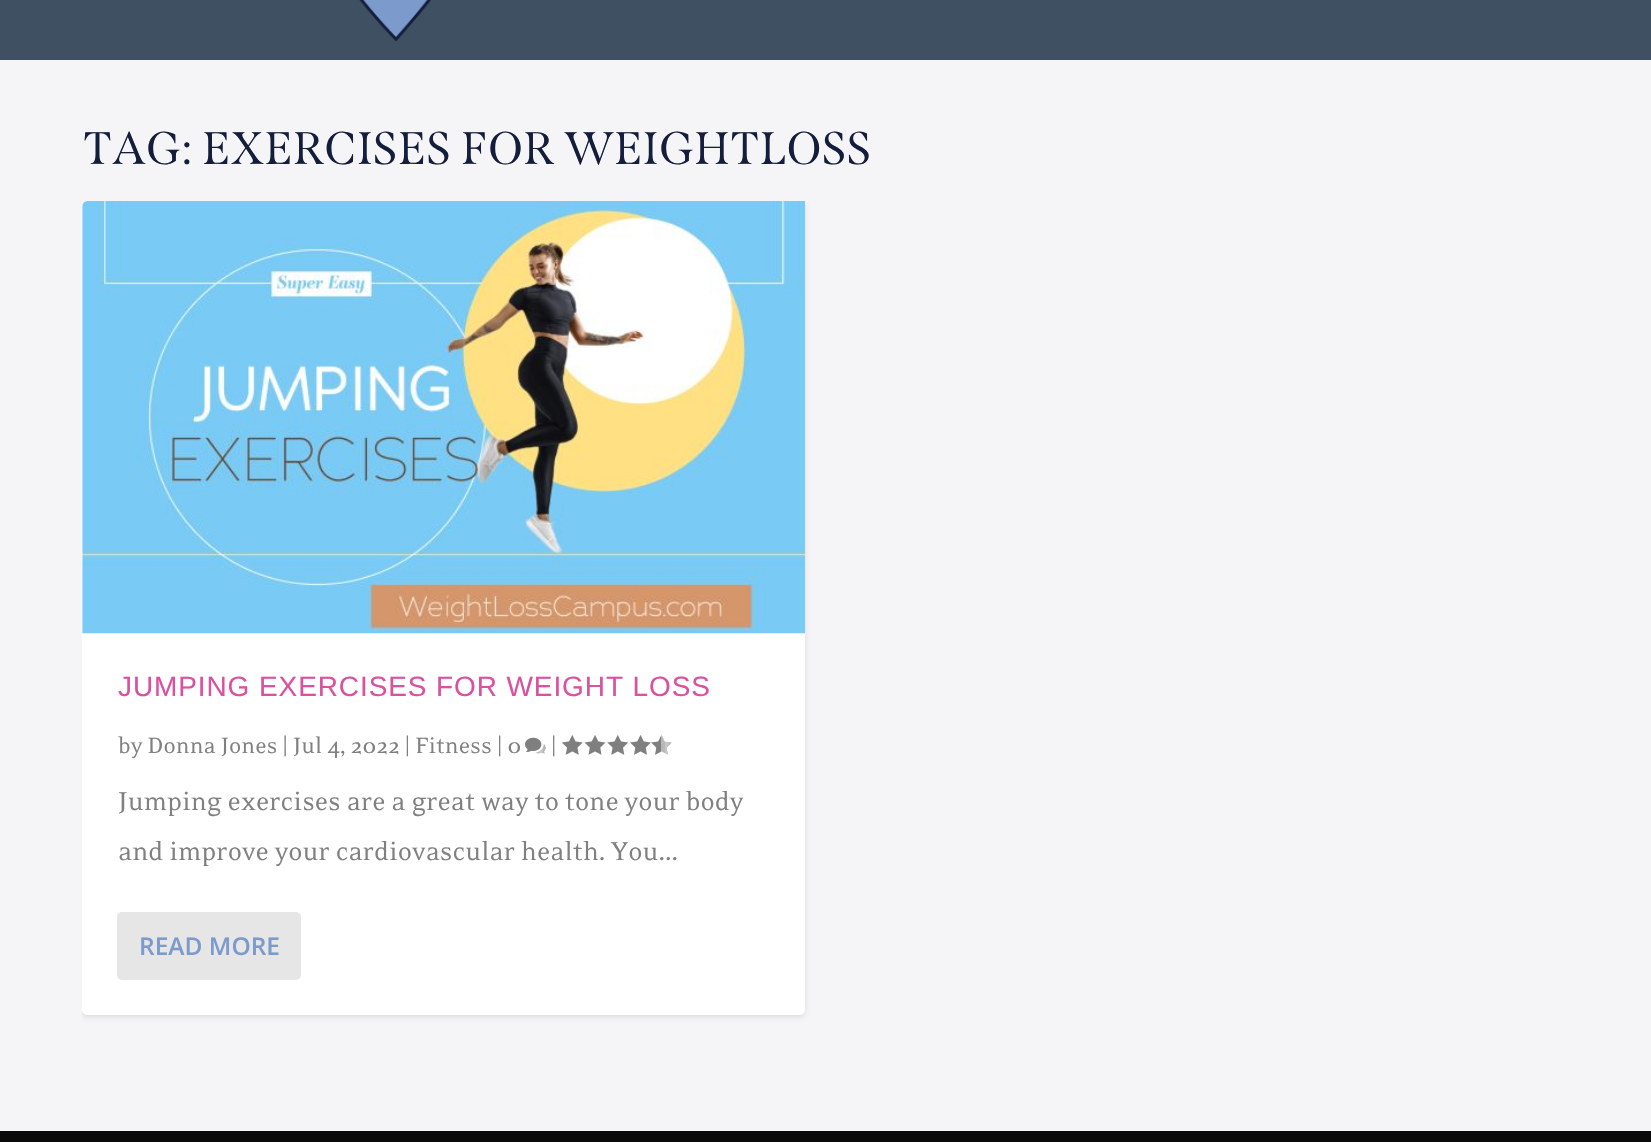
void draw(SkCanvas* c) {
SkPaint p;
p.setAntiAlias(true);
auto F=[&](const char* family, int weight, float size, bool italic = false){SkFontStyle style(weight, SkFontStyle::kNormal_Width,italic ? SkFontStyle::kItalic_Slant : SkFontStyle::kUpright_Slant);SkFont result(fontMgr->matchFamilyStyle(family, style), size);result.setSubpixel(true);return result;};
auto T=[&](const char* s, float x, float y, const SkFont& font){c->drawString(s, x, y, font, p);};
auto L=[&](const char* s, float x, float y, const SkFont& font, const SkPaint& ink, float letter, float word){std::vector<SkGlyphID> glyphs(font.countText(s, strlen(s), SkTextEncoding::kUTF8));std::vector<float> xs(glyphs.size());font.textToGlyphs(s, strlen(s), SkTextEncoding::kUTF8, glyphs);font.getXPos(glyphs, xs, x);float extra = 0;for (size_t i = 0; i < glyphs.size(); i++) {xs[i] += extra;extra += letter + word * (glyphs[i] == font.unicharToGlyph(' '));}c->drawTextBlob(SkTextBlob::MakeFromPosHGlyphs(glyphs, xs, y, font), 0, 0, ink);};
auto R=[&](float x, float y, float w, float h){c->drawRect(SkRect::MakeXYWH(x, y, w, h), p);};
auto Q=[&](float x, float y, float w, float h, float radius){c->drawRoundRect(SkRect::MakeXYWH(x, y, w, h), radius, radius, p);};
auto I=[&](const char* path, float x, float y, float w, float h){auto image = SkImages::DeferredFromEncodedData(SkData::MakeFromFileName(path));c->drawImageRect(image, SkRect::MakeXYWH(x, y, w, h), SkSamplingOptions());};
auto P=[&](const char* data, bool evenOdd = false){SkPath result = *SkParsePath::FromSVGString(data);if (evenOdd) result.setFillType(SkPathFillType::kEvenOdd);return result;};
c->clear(0xfff5f4f6);
p.setColor(0xff3e5062);
R(0,0,1651,60);
I("1.png",359,0,72,41);
auto f1 = F("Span",400,45.5);
p.setColor(0xff141d3b);
L("TAG: EXERCISES FOR WEIGHTLOSS",83,164,f1,p,.9,0);
c->save();
c->clipPath(P("M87 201h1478c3 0 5 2 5 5v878c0 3-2 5-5 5h-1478c-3 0-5-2-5-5v-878c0-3 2-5 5-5z"),true);
p.setColor(0x1a000000);
p.setMaskFilter(SkMaskFilter::MakeBlur(kNormal_SkBlurStyle, 2.5));
c->drawRoundRect(SkRect::MakeXYWH(82,203,723,814),5,5,p);
p.setMaskFilter(nullptr);
c->restore();
p.setColor(0xffffffff);
Q(82,201,723,814,5);
I("2.png",82,201,723,433);
auto f2 = F("Liberation Sans",400,28);
p.setColor(0xffdb509f);
L("JUMPING EXERCISES FOR WEIGHT LOSS",118,696,f2,p,.9,0);
auto f3 = F("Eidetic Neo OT",400,25.25);
p.setColor(0xff808080);
T("by Donna Jones | Jul 4, 2022 | Fitness | 0",118,753,f3);
I("3.png",525,737,21,17);
T("|",551,753,f3);
I("4.png",562,735,21,20);
I("5.png",584,735,22,20);
I("6.png",607,735,21,20);
I("7.png",630,735,21,20);
I("8.png",651,735,21,20);
auto f4 = F("Eidetic Neo OT",400,29.4);
T("Jumping exercises are a great way to tone your body",118,810,f4);
T("and improve your cardiovascular health. You...",118,860,f4);
p.setColor(0xffe6e6e6);
Q(117,912,184,68,5);
auto f5 = F("Open Sans",600,24.5);
p.setColor(0xff7c9acb);
T("READ MORE",139,955,f5);
p.setColor(0xff0a0a0a);
R(0,1131,1651,11);
}
